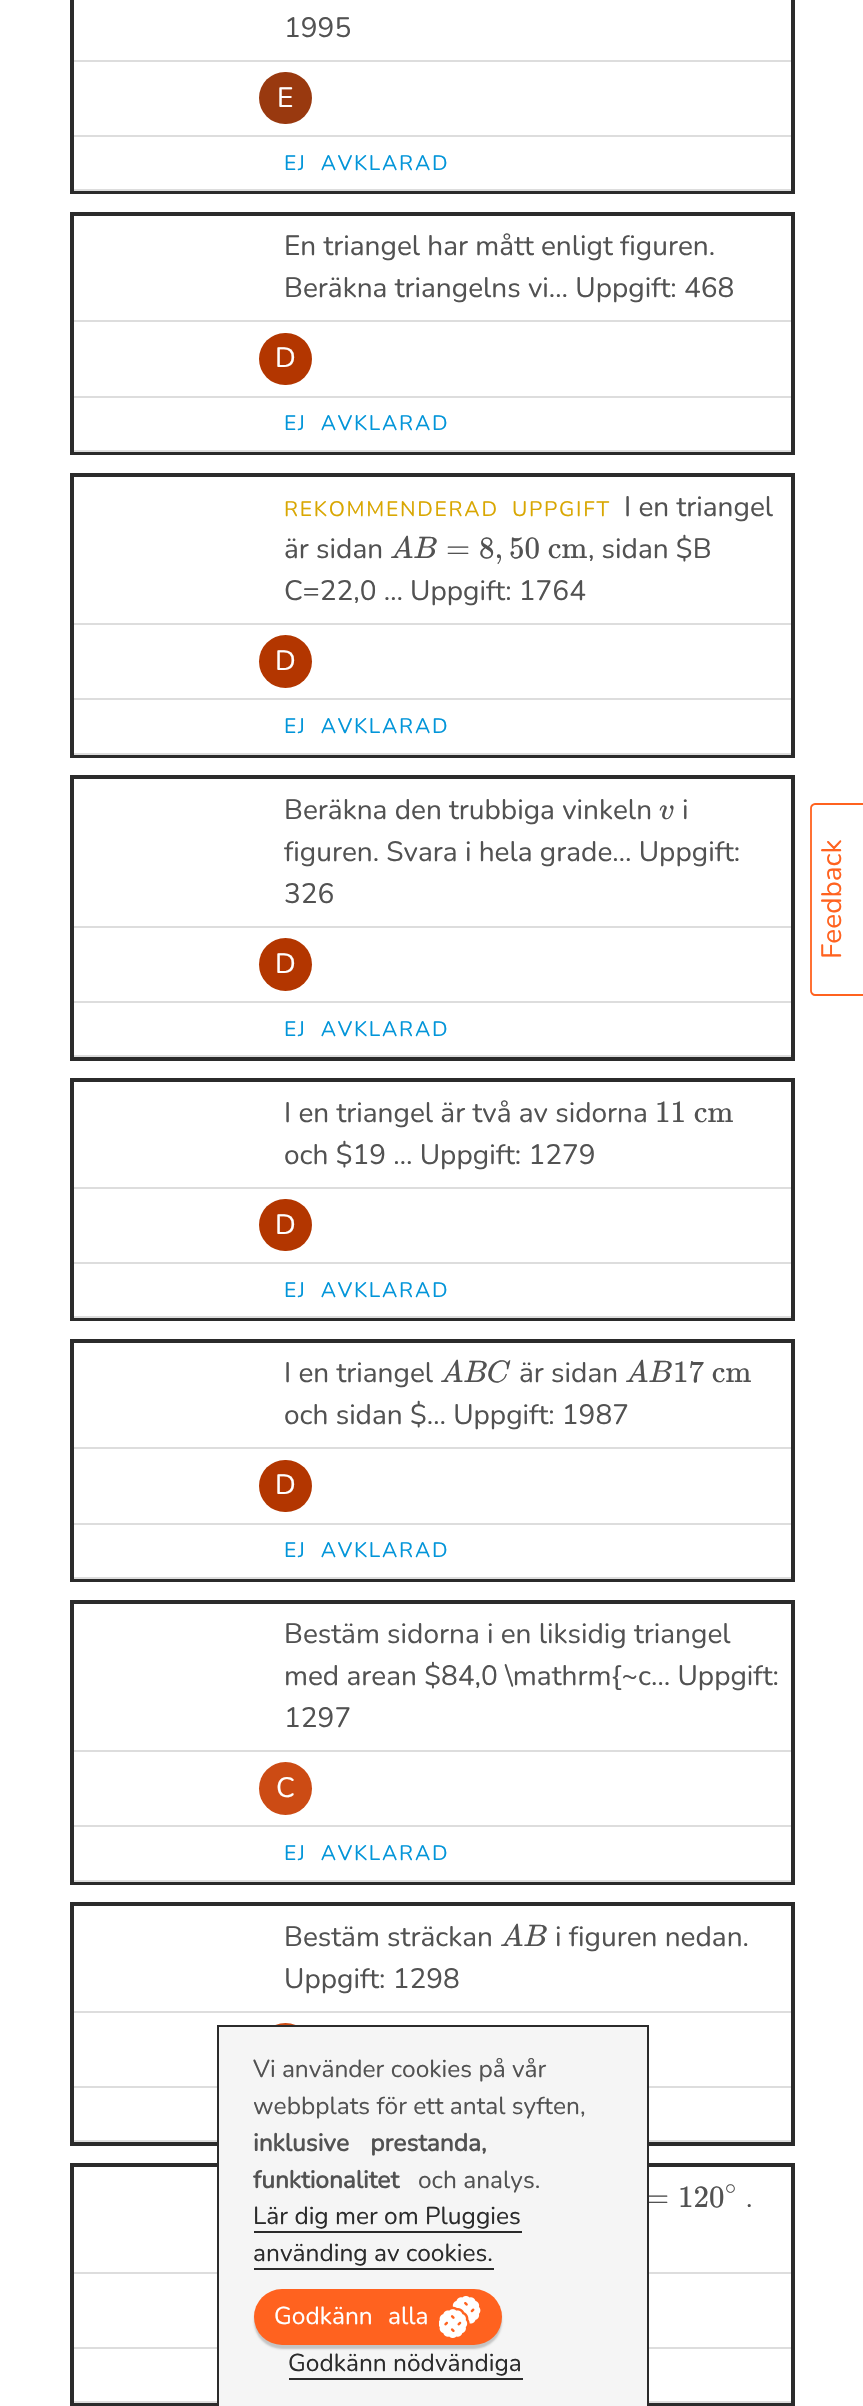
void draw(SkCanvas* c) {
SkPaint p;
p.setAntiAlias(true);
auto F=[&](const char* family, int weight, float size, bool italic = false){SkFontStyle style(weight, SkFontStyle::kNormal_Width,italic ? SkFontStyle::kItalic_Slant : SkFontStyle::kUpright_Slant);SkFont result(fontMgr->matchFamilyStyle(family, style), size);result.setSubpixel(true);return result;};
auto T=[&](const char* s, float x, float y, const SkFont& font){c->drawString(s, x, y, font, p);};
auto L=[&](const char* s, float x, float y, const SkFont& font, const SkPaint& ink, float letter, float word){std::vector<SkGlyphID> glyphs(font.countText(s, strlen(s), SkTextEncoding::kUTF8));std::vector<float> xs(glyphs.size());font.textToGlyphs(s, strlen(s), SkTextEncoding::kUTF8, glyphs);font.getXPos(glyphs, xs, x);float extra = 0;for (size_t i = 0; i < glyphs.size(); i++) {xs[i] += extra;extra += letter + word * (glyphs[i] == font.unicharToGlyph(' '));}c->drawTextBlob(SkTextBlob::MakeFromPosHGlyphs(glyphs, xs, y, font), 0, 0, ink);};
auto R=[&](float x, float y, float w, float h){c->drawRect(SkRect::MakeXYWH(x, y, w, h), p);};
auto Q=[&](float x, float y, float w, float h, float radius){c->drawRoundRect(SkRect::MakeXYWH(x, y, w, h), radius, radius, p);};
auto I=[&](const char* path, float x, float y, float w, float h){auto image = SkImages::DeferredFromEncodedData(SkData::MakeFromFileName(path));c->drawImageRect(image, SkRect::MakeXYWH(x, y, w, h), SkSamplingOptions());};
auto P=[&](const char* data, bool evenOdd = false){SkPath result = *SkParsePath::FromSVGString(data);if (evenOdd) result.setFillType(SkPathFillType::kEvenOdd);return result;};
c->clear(0xffffffff);
p.setStroke(true);
p.setStrokeWidth(4);
p.setColor(0xff2b2b2b);
c->drawRect(SkRect::MakeXYWH(72,-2,721,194),p);
p.setStroke(false);
p.setColor(0xffdddddd);
R(74,60,717,2);
auto f1 = F("Nunito",400,28);
p.setColor(0xff525252);
T("1995",284,37,f1);
p.setColor(0xffdddddd);
R(74,135,717,2);
p.setColor(0xff99390f);
Q(259,72,53,52,26);
p.setColor(0xffffffff);
T("E",277,107,f1);
p.setColor(0xffdddddd);
R(74,189,717,2);
auto f2 = F("Nunito",400,21);
p.setColor(0xff0295d9);
L("EJ AVKLARAD",284,170,f2,p,1.75,7);
p.setStroke(true);
p.setColor(0xff2b2b2b);
c->drawRect(SkRect::MakeXYWH(72,214,721,239),p);
p.setStroke(false);
p.setColor(0xffdddddd);
R(74,320,717,2);
p.setColor(0xff525252);
T("En triangel har mått enligt figuren.",284,255,f1);
T("Beräkna triangelns vi… Uppgift: 468",284,297,f1);
p.setColor(0xffdddddd);
R(74,396,717,2);
p.setColor(0xffb33600);
Q(259,333,53,52,26);
p.setColor(0xffffffff);
T("D",275,367,f1);
p.setColor(0xffdddddd);
R(74,450,717,2);
p.setColor(0xff0295d9);
L("EJ AVKLARAD",284,430,f2,p,1.75,7);
p.setStroke(true);
p.setColor(0xff2b2b2b);
c->drawRect(SkRect::MakeXYWH(72,475,721,281),p);
p.setStroke(false);
p.setColor(0xffdddddd);
R(74,623,717,2);
p.setColor(0xffd9a702);
L("REKOMMENDERAD UPPGIFT",284,516,f2,p,1.75,6);
p.setColor(0xff525252);
T("I en triangel",624,516,f1);
T("är sidan",284,558,f1);
auto f3 = F("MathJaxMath",400,31,true);
T("AB",390,558,f3);
auto f4 = F("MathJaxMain",400,31);
T("=",446,558,f4);
T("8,",479,558,f4);
T("50 cm",509,558,f4);
T(", sidan $B",588,558,f1);
T("C=22,0 … Uppgift: 1764",284,600,f1);
p.setColor(0xffdddddd);
R(74,698,717,2);
p.setColor(0xffb33600);
c->drawCircle(285.5,661.5,26.5,p);
p.setColor(0xffffffff);
T("D",275,670,f1);
p.setColor(0xffdddddd);
R(74,753,717,2);
p.setColor(0xff0295d9);
L("EJ AVKLARAD",284,733,f2,p,1.75,7);
p.setStroke(true);
p.setColor(0xff2b2b2b);
c->drawRect(SkRect::MakeXYWH(72,777,721,282),p);
p.setStroke(false);
p.setColor(0xffdddddd);
R(74,926,717,2);
p.setColor(0xff525252);
T("Beräkna den trubbiga vinkeln",284,819,f1);
T("v",659,819,f3);
T("i",682,819,f1);
T("figuren. Svara i hela grade… Uppgift:",284,861,f1);
T("326",284,903,f1);
p.setColor(0xffdddddd);
R(74,1001,717,2);
p.setColor(0xffb33600);
c->drawCircle(285.5,964.5,26.5,p);
p.setColor(0xffffffff);
T("D",275,973,f1);
p.setColor(0xffdddddd);
R(74,1055,717,2);
p.setColor(0xff0295d9);
L("EJ AVKLARAD",284,1036,f2,p,1.75,7);
p.setStroke(true);
p.setColor(0xff2b2b2b);
c->drawRect(SkRect::MakeXYWH(72,1080,721,239),p);
p.setStroke(false);
p.setColor(0xffdddddd);
R(74,1187,717,2);
p.setColor(0xff525252);
T("I en triangel är två av sidorna",284,1122,f1);
T("11 cm",655,1122,f4);
T("och $19 … Uppgift: 1279",284,1164,f1);
p.setColor(0xffdddddd);
R(74,1262,717,2);
p.setColor(0xffb33600);
Q(259,1199,53,52,26);
p.setColor(0xffffffff);
T("D",275,1234,f1);
p.setColor(0xffdddddd);
R(74,1316,717,2);
p.setColor(0xff0295d9);
L("EJ AVKLARAD",284,1297,f2,p,1.75,7);
p.setStroke(true);
p.setColor(0xff2b2b2b);
c->drawRect(SkRect::MakeXYWH(72,1341,721,239),p);
p.setStroke(false);
p.setColor(0xffdddddd);
R(74,1447,717,2);
p.setColor(0xff525252);
T("I en triangel",284,1382,f1);
T("ABC",440,1382,f3);
T("är sidan",519,1382,f1);
T("AB",625,1382,f3);
T("17 cm",673,1382,f4);
T("och sidan $… Uppgift: 1987",284,1424,f1);
p.setColor(0xffdddddd);
R(74,1523,717,2);
p.setColor(0xffb33600);
Q(259,1460,53,52,26);
p.setColor(0xffffffff);
T("D",275,1494,f1);
p.setColor(0xffdddddd);
R(74,1577,717,2);
p.setColor(0xff0295d9);
L("EJ AVKLARAD",284,1557,f2,p,1.75,7);
p.setStroke(true);
p.setColor(0xff2b2b2b);
c->drawRect(SkRect::MakeXYWH(72,1602,721,281),p);
p.setStroke(false);
p.setColor(0xffdddddd);
R(74,1750,717,2);
p.setColor(0xff525252);
T("Bestäm sidorna i en liksidig triangel",284,1643,f1);
T("med arean $84,0 \\mathrm{~c… Uppgift:",284,1685,f1);
T("1297",284,1727,f1);
p.setColor(0xffdddddd);
R(74,1825,717,2);
p.setColor(0xffcc4b14);
c->drawCircle(285.5,1788.5,26.5,p);
p.setColor(0xffffffff);
T("C",276,1797,f1);
p.setColor(0xffdddddd);
R(74,1880,717,2);
p.setColor(0xff0295d9);
L("EJ AVKLARAD",284,1860,f2,p,1.75,7);
p.setStroke(true);
p.setColor(0xff2b2b2b);
c->drawRect(SkRect::MakeXYWH(72,1904,721,240),p);
p.setStroke(false);
p.setColor(0xffdddddd);
R(74,2011,717,2);
p.setColor(0xff525252);
T("Bestäm sträckan",284,1946,f1);
T("AB",500,1946,f3);
T("i figuren nedan.",555,1946,f1);
T("Uppgift: 1298",284,1988,f1);
p.setColor(0xffdddddd);
R(74,2086,717,2);
p.setColor(0xffcc4b14);
c->drawCircle(285.5,2049.5,26.5,p);
p.setColor(0xffdddddd);
R(74,2140,717,2);
p.setStroke(true);
p.setColor(0xff2b2b2b);
c->drawRect(SkRect::MakeXYWH(72,2165,721,239),p);
p.setStroke(false);
p.setColor(0xffdddddd);
R(74,2272,717,2);
p.setColor(0xff525252);
T("=",645,2207,f4);
T("120",678,2207,f4);
auto f5 = F("MathJaxMain",400,22);
T("∘",725,2194,f5);
T(".",746,2207,f1);
p.setColor(0xffdddddd);
R(74,2347,717,2);
R(74,2401,717,2);
p.setStroke(true);
p.setStrokeWidth(1.8);
p.setColor(0xffff621f);
c->drawPath(P("M811 991v-183c0-2 2-4 4-4h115.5c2.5 0 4.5 2 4.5 4v183c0 2-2 4-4.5 4h-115.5c-2 0-4-2-4-4z"),p);
p.setStroke(false);
c->save();
c->rotate(-90,841,959);
T("Feedback",841,959,f1);
c->restore();
p.setColor(0xfff5f5f5);
c->drawRect(SkRect::MakeXYWH(218,2026,430,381),p);
p.setStroke(true);
p.setStrokeWidth(2);
p.setColor(0xff2b2b2b);
c->drawRect(SkRect::MakeXYWH(218,2026,430,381),p);
auto f6 = F("Nunito",400,24.5);
p.setStroke(false);
p.setColor(0xff525252);
T("Vi använder cookies på vår",253,2077,f6);
T("webbplats för ett antal syften,",253,2114,f6);
auto f7 = F("Nunito",700,24.5);
L("inklusive prestanda,",253,2151,f7,p,0,15);
T("funktionalitet",253,2188,f7);
T("och analys.",418,2188,f6);
p.setColor(0xff2b2b2b);
T("Lär dig mer om Pluggies",253,2224,f6);
R(254,2231,268,2);
T("använding av cookies.",253,2261,f6);
R(254,2268,240,2);
p.setColor(0x33000000);
p.setMaskFilter(SkMaskFilter::MakeBlur(kNormal_SkBlurStyle, 1));
c->drawRoundRect(SkRect::MakeXYWH(254,2293,248,56),28,28,p);
p.setMaskFilter(nullptr);
p.setColor(0xffff621f);
Q(254,2289,248,56,28);
p.setColor(0xffffffff);
L("Godkänn alla",274,2324,f6,p,0,9);
I("1.png",439,2296,42,42);
p.setColor(0xff2b2b2b);
T("Godkänn nödvändiga",288,2371,f6);
R(289,2378,234,2);
}
